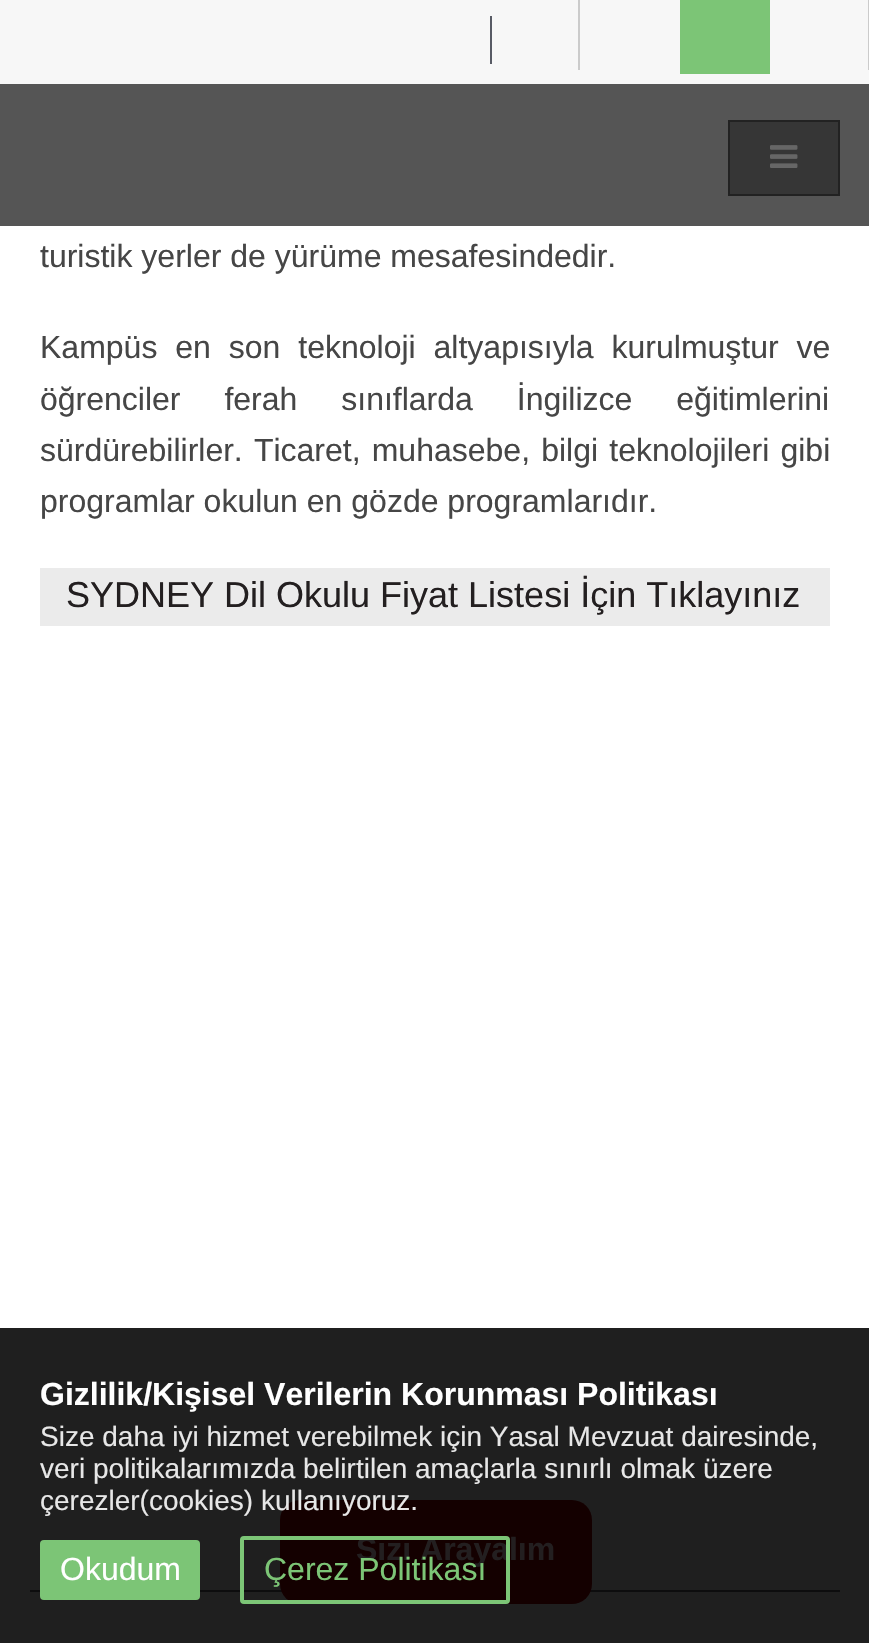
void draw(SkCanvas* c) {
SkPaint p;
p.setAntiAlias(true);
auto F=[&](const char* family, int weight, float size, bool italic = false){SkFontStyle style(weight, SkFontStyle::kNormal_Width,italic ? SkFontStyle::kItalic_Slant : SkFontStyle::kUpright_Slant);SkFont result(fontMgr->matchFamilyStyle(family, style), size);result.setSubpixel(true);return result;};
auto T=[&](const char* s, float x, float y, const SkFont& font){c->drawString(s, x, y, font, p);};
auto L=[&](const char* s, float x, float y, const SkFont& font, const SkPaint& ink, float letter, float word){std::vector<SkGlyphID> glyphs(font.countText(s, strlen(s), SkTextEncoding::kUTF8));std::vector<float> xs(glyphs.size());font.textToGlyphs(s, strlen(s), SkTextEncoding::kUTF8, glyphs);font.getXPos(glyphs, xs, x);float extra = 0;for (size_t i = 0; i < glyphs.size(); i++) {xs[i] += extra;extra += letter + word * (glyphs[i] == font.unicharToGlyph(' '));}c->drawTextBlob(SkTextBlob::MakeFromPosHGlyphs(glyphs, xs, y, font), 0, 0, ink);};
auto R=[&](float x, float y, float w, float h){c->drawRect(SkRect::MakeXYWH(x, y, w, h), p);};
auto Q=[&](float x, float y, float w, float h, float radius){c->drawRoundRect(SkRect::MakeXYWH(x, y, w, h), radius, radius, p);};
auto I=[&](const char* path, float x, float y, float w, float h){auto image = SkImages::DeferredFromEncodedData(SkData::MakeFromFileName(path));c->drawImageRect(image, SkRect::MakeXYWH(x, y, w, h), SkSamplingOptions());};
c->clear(0xffffffff);
p.setColor(0xff1f1f1f);
R(0,1328,869,315);
p.setColor(0xfff7f7f7);
R(0,0,869,84);
p.setColor(0xffcbcbcb);
R(578,0,2,70);
p.setColor(0xff585b65);
R(490,16,2,48);
p.setColor(0xff7cc576);
R(680,0,90,74);
p.setColor(0xffcbcbcb);
R(868,0,1,70);
p.setColor(0xff555555);
R(0,84,869,142);
p.setColor(0xff363636);
c->drawRect(SkRect::MakeXYWH(729,121,110,74),p);
p.setStroke(true);
p.setStrokeWidth(2);
p.setColor(0xff222222);
c->drawRect(SkRect::MakeXYWH(729,121,110,74),p);
I("1.png",770,145,28,23);
auto f1 = F("Liberation Sans",400,32);
p.setStroke(false);
p.setColor(0xff464646);
T("turistik yerler de yürüme mesafesindedir.",40,267,f1);
L("Kampüs en son teknoloji altyapısıyla kurulmuştur ve",40,358,f1,p,0,9);
L("öğrenciler ferah sınıflarda İngilizce eğitimlerini",40,410,f1,p,0,35);
L("sürdürebilirler. Ticaret, muhasebe, bilgi teknolojileri gibi",40,461,f1,p,0,2.25);
T("programlar okulun en gözde programlarıdır.",40,512,f1);
p.setColor(0xffebebeb);
R(40,568,790,58);
auto f2 = F("Liberation Sans",400,36);
p.setColor(0xff231f20);
T("SYDNEY Dil Okulu Fiyat Listesi İçin Tıklayınız",66,607,f2);
p.setColor(0xff0d0d0e);
R(30,1590,810,2);
auto f3 = F("Liberation Sans",700,32);
p.setColor(0xffffffff);
T("Gizlilik/Kişisel Verilerin Korunması Politikası",40,1405,f3);
auto f4 = F("Liberation Sans",400,28);
p.setColor(0xffe7e7e7);
T("Size daha iyi hizmet verebilmek için Yasal Mevzuat dairesinde,",40,1446,f4);
T("veri politikalarımızda belirtilen amaçlarla sınırlı olmak üzere",40,1478,f4);
p.setColor(0xff140000);
Q(280,1500,312,104,20);
p.setColor(0xffe7e7e7);
T("çerezler(cookies) kullanıyoruz.",40,1510,f4);
p.setColor(0xff7cc576);
Q(40,1540,160,60,4);
p.setColor(0xffffffff);
T("Okudum",60,1580,f1);
p.setColor(0xff231f20);
T("Sizi Arayalım",356,1560,f3);
p.setStroke(true);
p.setStrokeWidth(4);
p.setColor(0xff7cc576);
c->drawRoundRect(SkRect::MakeXYWH(242,1538,266,64),2,2,p);
p.setStroke(false);
T("Çerez Politikası",264,1580,f1);
}
